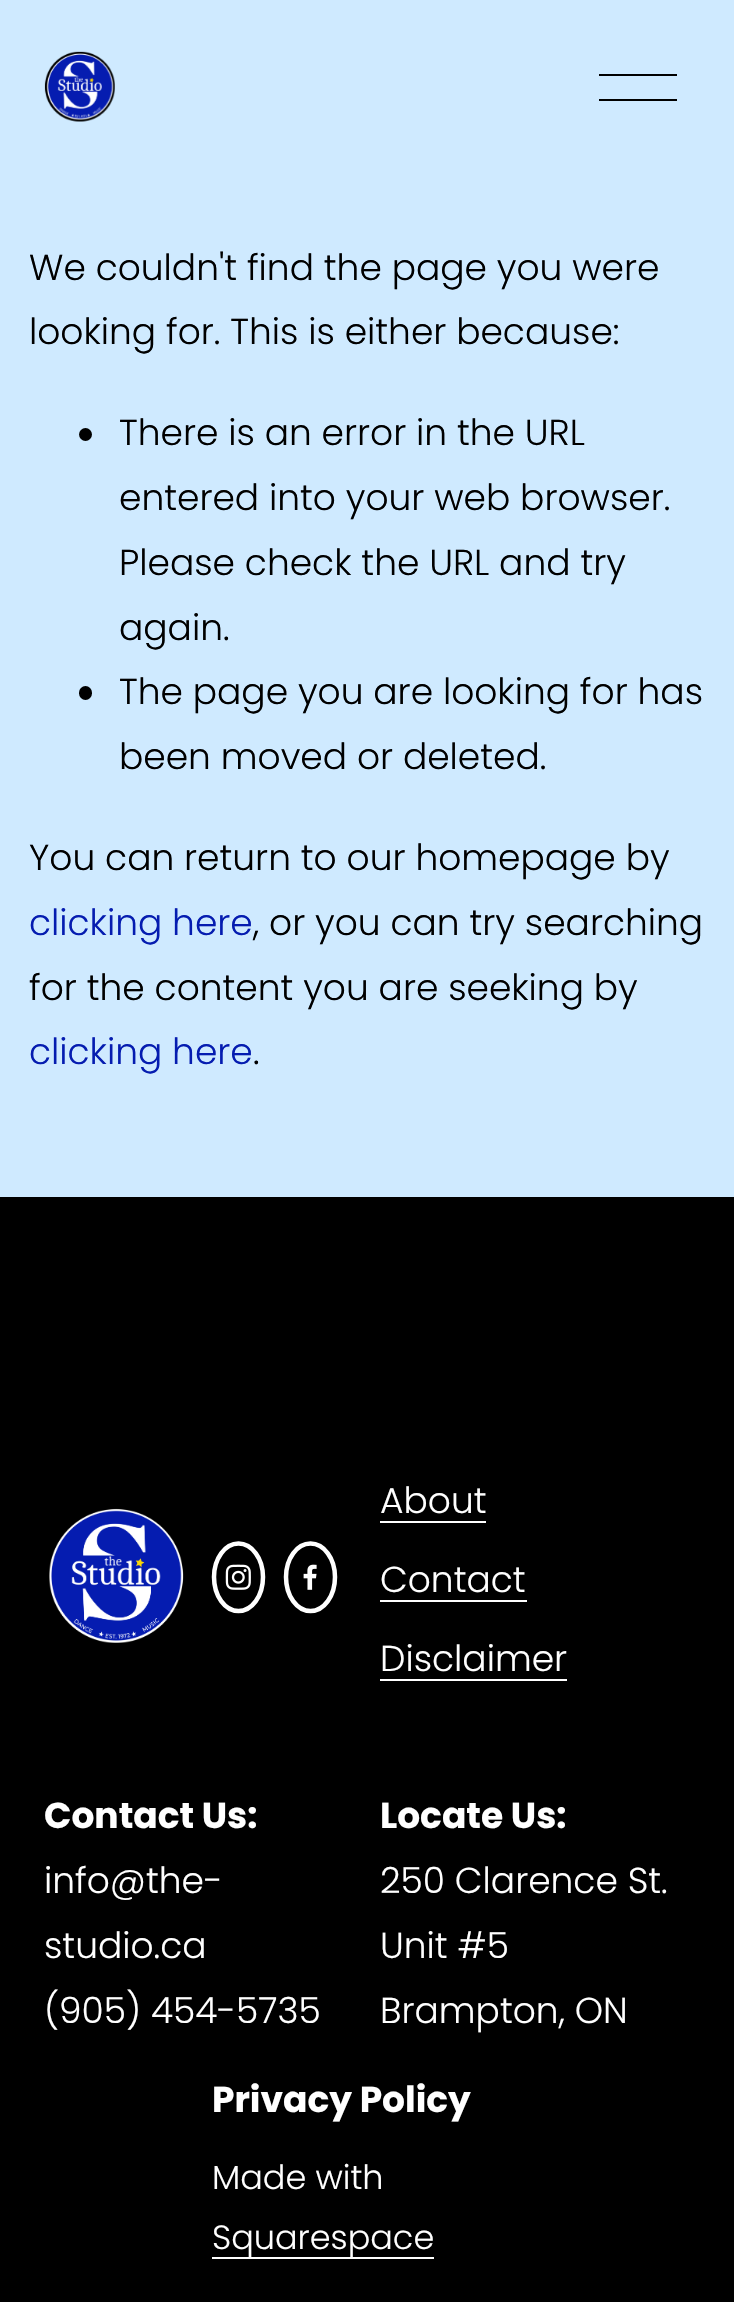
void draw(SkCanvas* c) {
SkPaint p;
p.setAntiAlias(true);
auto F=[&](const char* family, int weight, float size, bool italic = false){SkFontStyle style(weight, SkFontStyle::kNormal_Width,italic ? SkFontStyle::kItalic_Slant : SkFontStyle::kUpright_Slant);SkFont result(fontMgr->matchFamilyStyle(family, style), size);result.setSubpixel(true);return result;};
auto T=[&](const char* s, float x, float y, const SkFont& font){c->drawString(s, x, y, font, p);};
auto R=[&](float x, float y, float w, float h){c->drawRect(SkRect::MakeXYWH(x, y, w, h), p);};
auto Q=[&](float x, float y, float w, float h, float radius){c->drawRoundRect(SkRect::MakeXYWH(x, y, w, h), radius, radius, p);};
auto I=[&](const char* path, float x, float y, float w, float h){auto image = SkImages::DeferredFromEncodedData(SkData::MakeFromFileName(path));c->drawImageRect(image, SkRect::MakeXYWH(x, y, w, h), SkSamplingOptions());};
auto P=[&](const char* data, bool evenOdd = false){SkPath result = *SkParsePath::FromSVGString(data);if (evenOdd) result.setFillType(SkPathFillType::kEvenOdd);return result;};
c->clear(0xffcfeaff);
I("1.png",44,51,71,71);
p.setColor(0xff000000);
R(599,74,78,2);
R(599,99,78,2);
auto f1 = F("Poppins",300,36);
T("We couldn't find the page you were",29,280,f1);
T("looking for. This is either because:",29,344,f1);
c->drawCircle(85.5,434.5,6.5,p);
T("There is an error in the URL",119,445,f1);
T("entered into your web browser.",119,510,f1);
T("Please check the URL and try",119,575,f1);
T("again.",119,640,f1);
Q(79,686,13,14,6.5);
T("The page you are looking for has",119,704,f1);
T("been moved or deleted.",119,769,f1);
T("You can return to our homepage by",29,870,f1);
p.setColor(0xff051cb0);
T("clicking here",29,935,f1);
p.setColor(0xff000000);
T(", or you can try searching",253,935,f1);
T("for the content you are seeking by",29,1000,f1);
p.setColor(0xff051cb0);
T("clicking here",29,1064,f1);
p.setColor(0xff000000);
T(".",253,1064,f1);
R(0,1197,734,1105);
p.setColor(0xffffffff);
T("About",380,1513,f1);
R(380,1521,106,2);
I("2.png",49,1508,135,135);
p.setStroke(true);
p.setStrokeWidth(4.5);
c->drawPath(P("M238.5 1543.5c13.5 0 24.5 15 24.5 33.5c0 19-11 34-24.5 34c-13.5 0-24.5-15-24.5-34c0-18.5 11-33.5 24.5-33.5z"),p);
I("3.png",225,1564,26,26);
c->drawPath(P("M310.5 1543.5c13.5 0 24.5 15 24.5 33.5c0 19-11 34-24.5 34c-13.5 0-24.5-15-24.5-34c0-18.5 11-33.5 24.5-33.5z"),p);
I("4.png",303,1564,14,26);
p.setStroke(false);
T("Contact",380,1592,f1);
R(380,1600,147,2);
T("Disclaimer",380,1671,f1);
R(380,1679,187,2);
auto f2 = F("Poppins",700,36);
T("Contact Us:",44,1828,f2);
T("info@the-",44,1893,f1);
T("studio.ca",44,1958,f1);
T("(905) 454-5735",44,2023,f1);
T("Locate Us:",380,1828,f2);
T("250 Clarence St.",380,1893,f1);
T("Unit #5",380,1958,f1);
T("Brampton, ON",380,2023,f1);
T("Privacy Policy",212,2112,f2);
auto f3 = F("Poppins",300,33.5);
T("Made with",212,2189,f3);
R(212,2257,222,2);
T("Squarespace",212,2249,f3);
}
